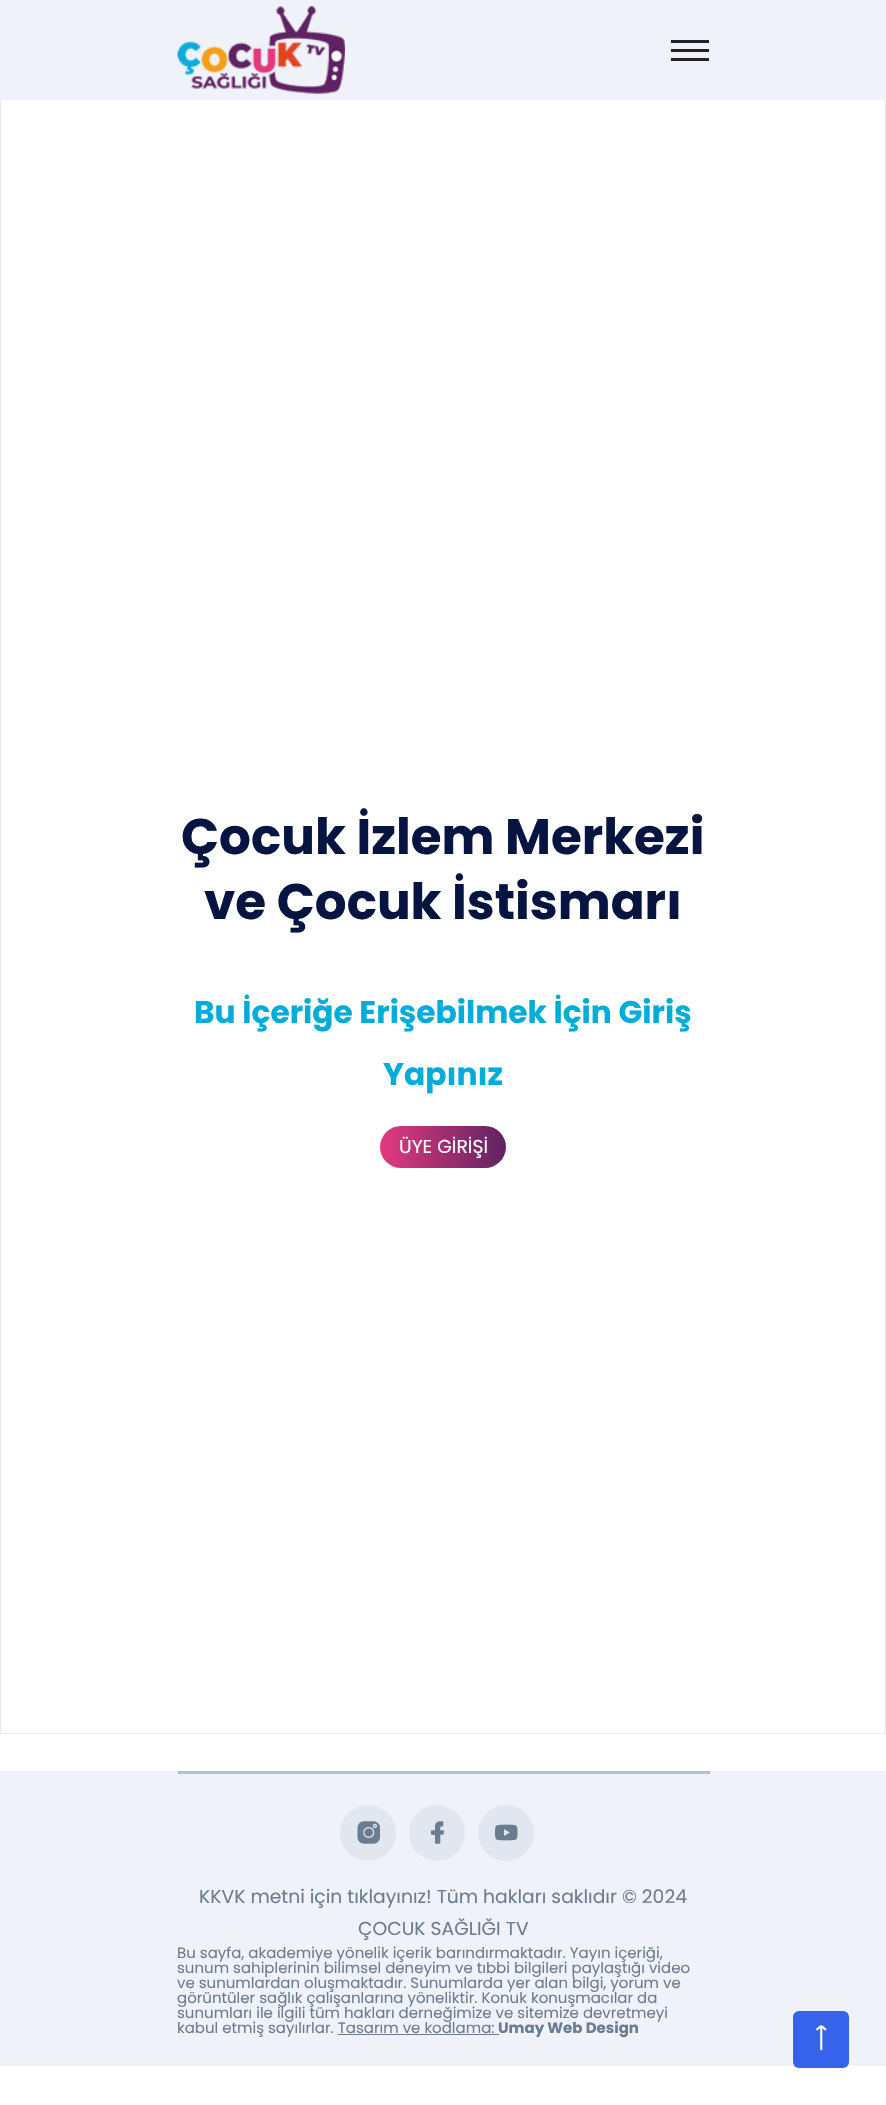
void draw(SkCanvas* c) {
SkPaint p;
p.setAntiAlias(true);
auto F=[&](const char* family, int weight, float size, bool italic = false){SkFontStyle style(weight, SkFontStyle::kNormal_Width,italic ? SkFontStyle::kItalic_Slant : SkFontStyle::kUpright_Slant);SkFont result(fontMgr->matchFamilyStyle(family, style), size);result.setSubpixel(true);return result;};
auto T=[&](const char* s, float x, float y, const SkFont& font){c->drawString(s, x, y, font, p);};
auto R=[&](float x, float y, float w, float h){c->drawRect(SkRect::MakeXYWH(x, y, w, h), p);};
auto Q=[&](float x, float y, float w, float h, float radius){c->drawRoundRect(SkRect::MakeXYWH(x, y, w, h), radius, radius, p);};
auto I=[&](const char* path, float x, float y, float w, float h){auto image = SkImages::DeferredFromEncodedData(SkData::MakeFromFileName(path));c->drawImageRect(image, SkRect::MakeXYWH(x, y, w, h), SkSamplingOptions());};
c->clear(0xffffffff);
p.setStroke(true);
p.setStrokeWidth(1);
p.setColor(0xffe6e8eb);
c->drawRect(SkRect::MakeXYWH(.5,50.5,885,1683),p);
p.setStroke(false);
p.setColor(0xffeff2f9);
R(0,0,886,100);
I("1.png",177,6,168,88);
p.setColor(0xff222222);
R(671,40,38,3);
R(671,49,38,3);
R(671,58,38,3);
auto f1 = F("Poppins",700,50);
p.setColor(0xff051441);
T("Çocuk İzlem Merkezi",181,854,f1);
T("ve Çocuk İstismarı",204,919,f1);
auto f2 = F("Poppins",700,31.25);
p.setColor(0xff00acda);
T("Bu İçeriğe Erişebilmek İçin Giriş",194,1023,f2);
T("Yapınız",383,1085,f2);
{
const SkColor colors[] = {0xffe3397d,0xff5e2363,0xffe3397d};
const float stops[] = {0,.5,1};
const SkPoint ends[] = {{633,1147}, {380,1147}};
p.setShader(SkGradientShader::MakeLinear(ends, colors, stops, 3, SkTileMode::kClamp));
p.setAlpha(255);
}
Q(380,1126,126,42,21);
auto f3 = F("Poppins",400,18.75);
p.setShader(nullptr);
p.setColor(0xffffffff);
T("ÜYE GİRİŞİ",399,1153,f3);
p.setColor(0xffeff2f9);
R(0,1771,886,295);
p.setColor(0xffb4becc);
R(178,1771,532,3);
p.setColor(0xffe2e6ef);
c->drawCircle(368,1833,28,p);
I("2.png",357,1821,23,23);
c->drawCircle(437,1833,28,p);
I("3.png",430,1821,15,23);
c->drawCircle(506,1833,28,p);
I("4.png",495,1824,23,17);
p.setColor(0xff6a7c92);
T("KKVK metni için tıklayınız! Tüm hakları saklıdır © 2024",199,1903,f3);
T("ÇOCUK SAĞLIĞI TV",358,1935,f3);
auto f4 = F("Poppins",400,15);
T("Bu sayfa, akademiye yönelik içerik barındırmaktadır. Yayın içeriği,",177,1958,f4);
T("sunum sahiplerinin bilimsel deneyim ve tıbbi bilgileri paylaştığı video",177,1973,f4);
T("ve sunumlardan oluşmaktadır. Sunumlarda yer alan bilgi, yorum ve",177,1988,f4);
T("görüntüler sağlık çalışanlarına yöneliktir. Konuk konuşmacılar da",177,2003,f4);
T("sunumları ile ilgili tüm hakları derneğimize ve sitemize devretmeyi",177,2018,f4);
T("kabul etmiş sayılırlar. Tasarım ve kodlama:",177,2033,f4);
R(338,2034,161,1);
auto f5 = F("Poppins",700,15);
T("Umay Web Design",498,2033,f5);
p.setColor(0xff3763eb);
Q(793,2011,56,57,6);
I("5.png",816,2025,11,26);
}
